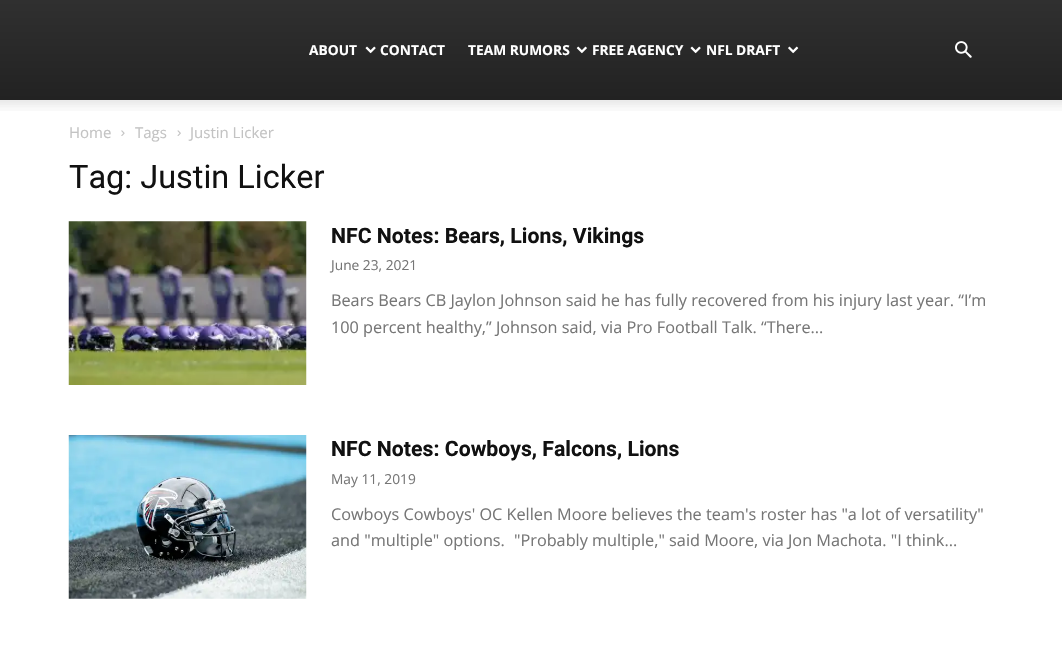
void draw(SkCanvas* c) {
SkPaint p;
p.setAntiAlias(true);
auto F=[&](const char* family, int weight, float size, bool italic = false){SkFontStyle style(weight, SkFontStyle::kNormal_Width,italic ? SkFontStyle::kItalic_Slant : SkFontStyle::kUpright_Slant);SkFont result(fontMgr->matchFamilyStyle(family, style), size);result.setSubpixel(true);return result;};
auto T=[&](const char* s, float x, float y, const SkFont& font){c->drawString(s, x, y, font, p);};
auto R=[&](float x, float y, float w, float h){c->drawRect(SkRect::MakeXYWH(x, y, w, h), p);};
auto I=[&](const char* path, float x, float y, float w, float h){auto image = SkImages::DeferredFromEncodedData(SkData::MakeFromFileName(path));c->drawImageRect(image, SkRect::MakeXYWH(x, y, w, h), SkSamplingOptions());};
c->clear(0xffffffff);
{
const SkColor colors[] = {0xff303030,0xff222222};
const float stops[] = {0,1};
const SkPoint ends[] = {{531,0}, {531,100}};
p.setShader(SkGradientShader::MakeLinear(ends, colors, stops, 2, SkTileMode::kClamp));
p.setAlpha(255);
}
R(0,0,1062,100);
auto f1 = F("Open Sans",700,13.75);
p.setShader(nullptr);
p.setColor(0xffffffff);
T("ABOUT",309,55,f1);
I("1.png",365,46,11,8);
T("CONTACT",380,55,f1);
T("TEAM RUMORS",468,55,f1);
I("2.png",576,46,11,8);
T("FREE AGENCY",592,55,f1);
I("1.png",690,46,11,8);
T("NFL DRAFT",706,55,f1);
I("3.png",788,46,11,8);
I("4.png",955,41,17,17);
I("5.png",0,100,1062,11);
auto f2 = F("Open Sans",400,15);
p.setColor(0xffc3c3c3);
T("Home",69,138,f2);
I("6.png",121,130,4,6);
T("Tags",135,138,f2);
I("7.png",177,130,4,6);
T("Justin Licker",190,138,f2);
auto f3 = F("Roboto",400,32.5);
p.setColor(0xff111111);
T("Tag: Justin Licker",69,188,f3);
I("8.png",68,221,239,164);
auto f4 = F("Roboto",700,21.25);
T("NFC Notes: Bears, Lions, Vikings",331,243,f4);
auto f5 = F("Open Sans",400,13.75);
p.setColor(0xff767676);
T("June 23, 2021",331,270,f5);
auto f6 = F("Open Sans",400,16.25);
T("Bears Bears CB Jaylon Johnson said he has fully recovered from his injury last year. “I’m",331,306,f6);
T("100 percent healthy,” Johnson said, via Pro Football Talk. “There...",331,333,f6);
I("9.png",68,435,239,164);
p.setColor(0xff111111);
T("NFC Notes: Cowboys, Falcons, Lions",331,456,f4);
p.setColor(0xff767676);
T("May 11, 2019",331,484,f5);
T("Cowboys Cowboys' OC Kellen Moore believes the team's roster has \"a lot of versatility\"",331,520,f6);
T("and \"multiple\" options.",331,546,f6);
T("\"Probably multiple,\" said Moore, via Jon Machota. \"I think...",514,546,f6);
}
